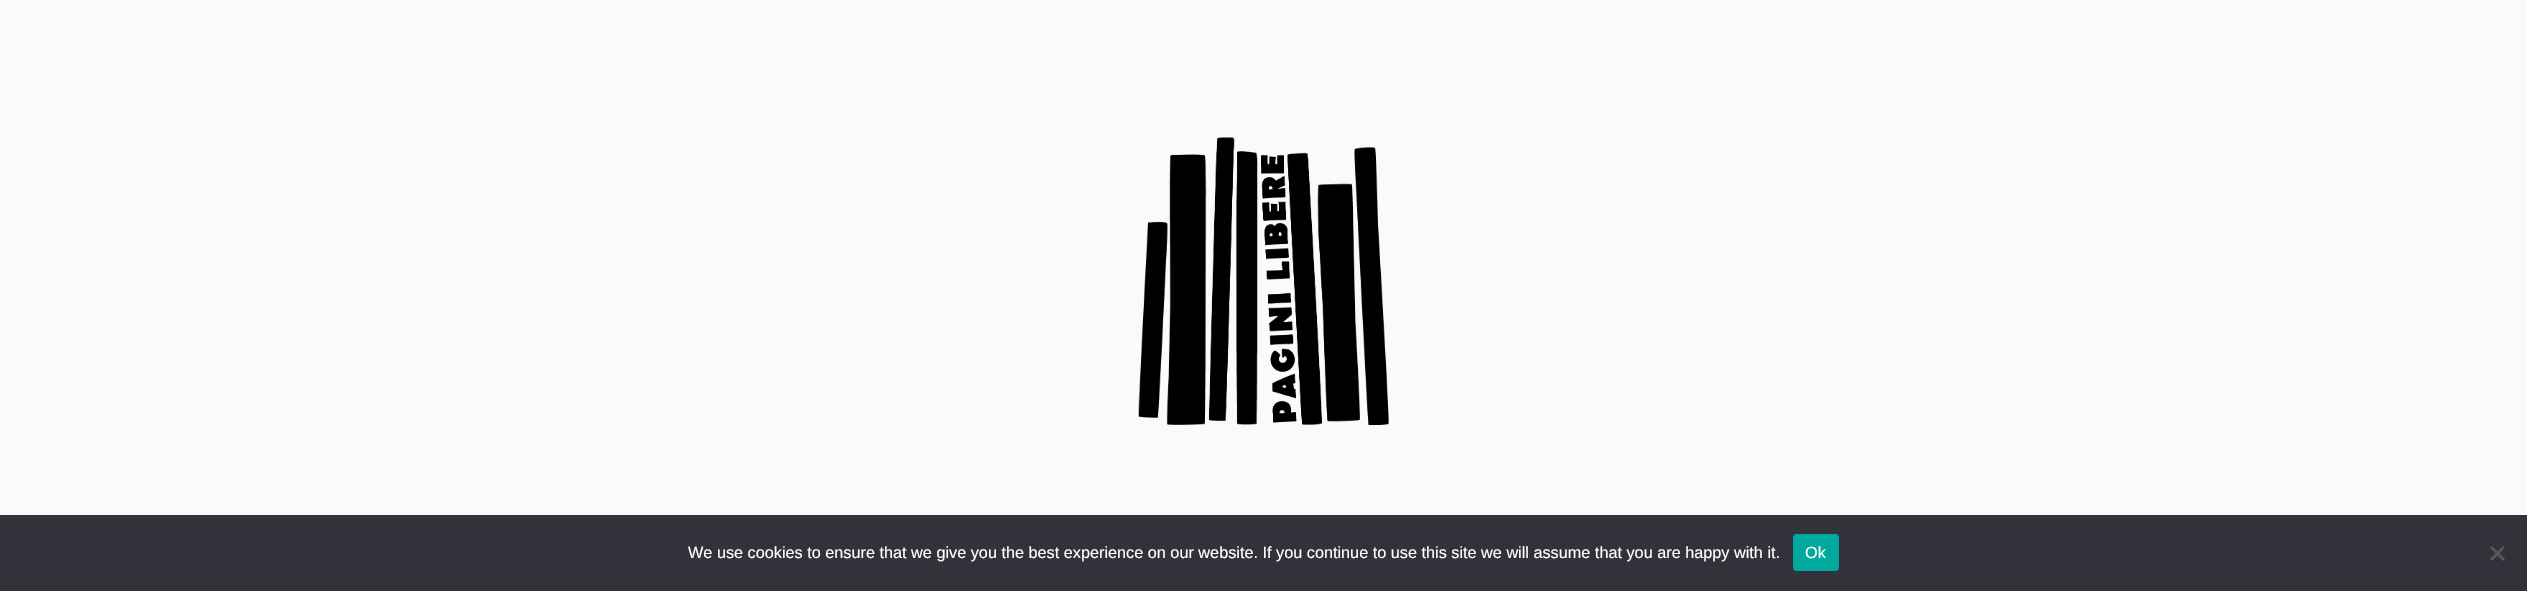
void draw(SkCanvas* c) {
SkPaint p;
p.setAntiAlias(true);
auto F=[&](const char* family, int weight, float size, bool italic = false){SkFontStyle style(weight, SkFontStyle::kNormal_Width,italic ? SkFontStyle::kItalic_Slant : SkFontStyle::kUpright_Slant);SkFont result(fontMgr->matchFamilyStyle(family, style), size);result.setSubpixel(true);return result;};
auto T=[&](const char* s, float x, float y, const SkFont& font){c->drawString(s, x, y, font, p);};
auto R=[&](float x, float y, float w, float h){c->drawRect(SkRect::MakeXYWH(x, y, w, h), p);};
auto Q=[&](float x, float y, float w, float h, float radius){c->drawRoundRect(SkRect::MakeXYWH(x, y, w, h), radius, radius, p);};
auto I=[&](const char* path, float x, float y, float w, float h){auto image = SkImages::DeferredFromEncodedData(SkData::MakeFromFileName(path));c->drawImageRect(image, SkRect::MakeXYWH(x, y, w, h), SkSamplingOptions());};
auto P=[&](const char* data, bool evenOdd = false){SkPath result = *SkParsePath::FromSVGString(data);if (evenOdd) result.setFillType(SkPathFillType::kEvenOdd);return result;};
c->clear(0xfffafafa);
I("1.png",1138,137,251,288);
p.setColor(0xff32323a);
R(0,515,2527,76);
auto f1 = F("Liberation Sans",400,16.25);
p.setColor(0xffffffff);
T("We use cookies to ensure that we give you the best experience on our website. If you continue to use this site we will assume that you are happy with it.",688,558,f1);
p.setColor(0xff00a99d);
Q(1793,534,46,37,4);
p.setColor(0xffffffff);
T("Ok",1805,558,f1);
p.setColor(0xff59595d);
c->drawPath(P("M2503 546l2 1.5l-13 13.5l-2-2z"),p);
c->drawPath(P("M2490 547.5l2-1.5l13 13l-2 2z"),p);
}
